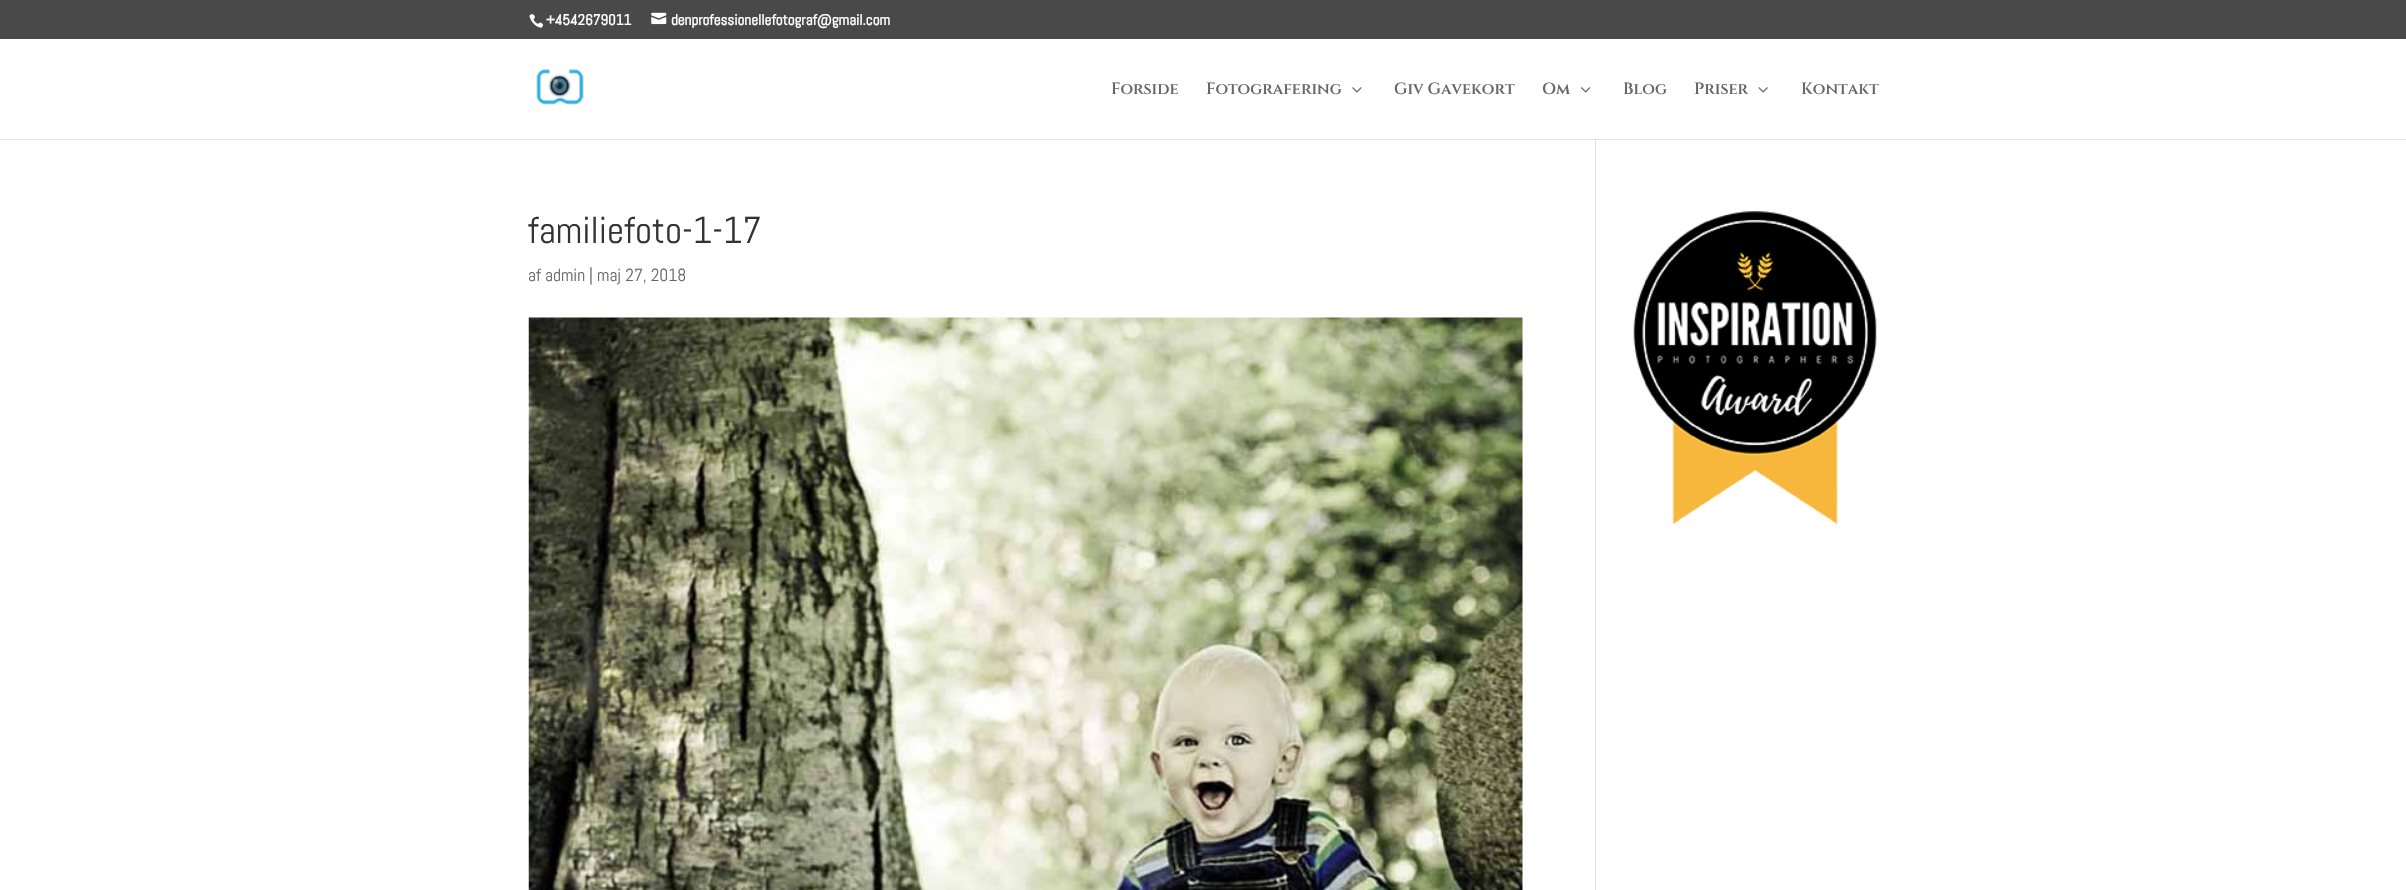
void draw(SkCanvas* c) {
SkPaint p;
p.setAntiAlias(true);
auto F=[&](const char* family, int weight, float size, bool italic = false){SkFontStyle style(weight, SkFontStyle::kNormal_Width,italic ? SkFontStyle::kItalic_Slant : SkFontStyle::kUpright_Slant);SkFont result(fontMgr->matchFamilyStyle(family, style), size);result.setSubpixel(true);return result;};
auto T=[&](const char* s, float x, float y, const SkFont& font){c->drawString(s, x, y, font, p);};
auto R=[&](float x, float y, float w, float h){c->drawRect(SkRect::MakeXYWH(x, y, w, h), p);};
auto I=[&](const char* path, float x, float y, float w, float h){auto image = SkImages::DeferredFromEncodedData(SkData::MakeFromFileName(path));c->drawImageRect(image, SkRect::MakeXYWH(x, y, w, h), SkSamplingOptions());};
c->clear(0xffffffff);
p.setColor(0xffe6e6e6);
R(0,139,2406,1);
p.setColor(0xff494949);
R(0,0,2406,39);
I("1.png",529,14,15,14);
auto f1 = F("Abel",700,15);
p.setColor(0xffffffff);
T("+4542679011",546,25,f1);
I("2.png",651,12,16,13);
T("denprofessionellefotograf@gmail.com",671,25,f1);
I("3.png",536,69,48,36);
auto f2 = F("Cinzel",600,16.25);
p.setColor(0xff666666);
T("Forside",1111,94,f2);
T("Fotografering",1206,94,f2);
I("4.png",1352,87,10,6);
T("Giv Gavekort",1394,94,f2);
T("Om",1542,94,f2);
I("5.png",1581,87,10,6);
T("Blog",1623,94,f2);
T("Priser",1694,94,f2);
I("6.png",1758,87,10,6);
T("Kontakt",1801,94,f2);
auto f3 = F("Abel",400,37.5);
p.setColor(0xff333333);
T("familiefoto-1-17",528,243,f3);
auto f4 = F("Abel",400,17.5);
p.setColor(0xff666666);
T("af admin | maj 27, 2018",528,281,f4);
I("7.png",528,317,995,573);
I("8.png",1633,211,244,313);
p.setColor(0xffe2e2e2);
R(1595,139,1,751);
p.setColor(0xffcbcbcb);
R(1595,139,1,1);
}
